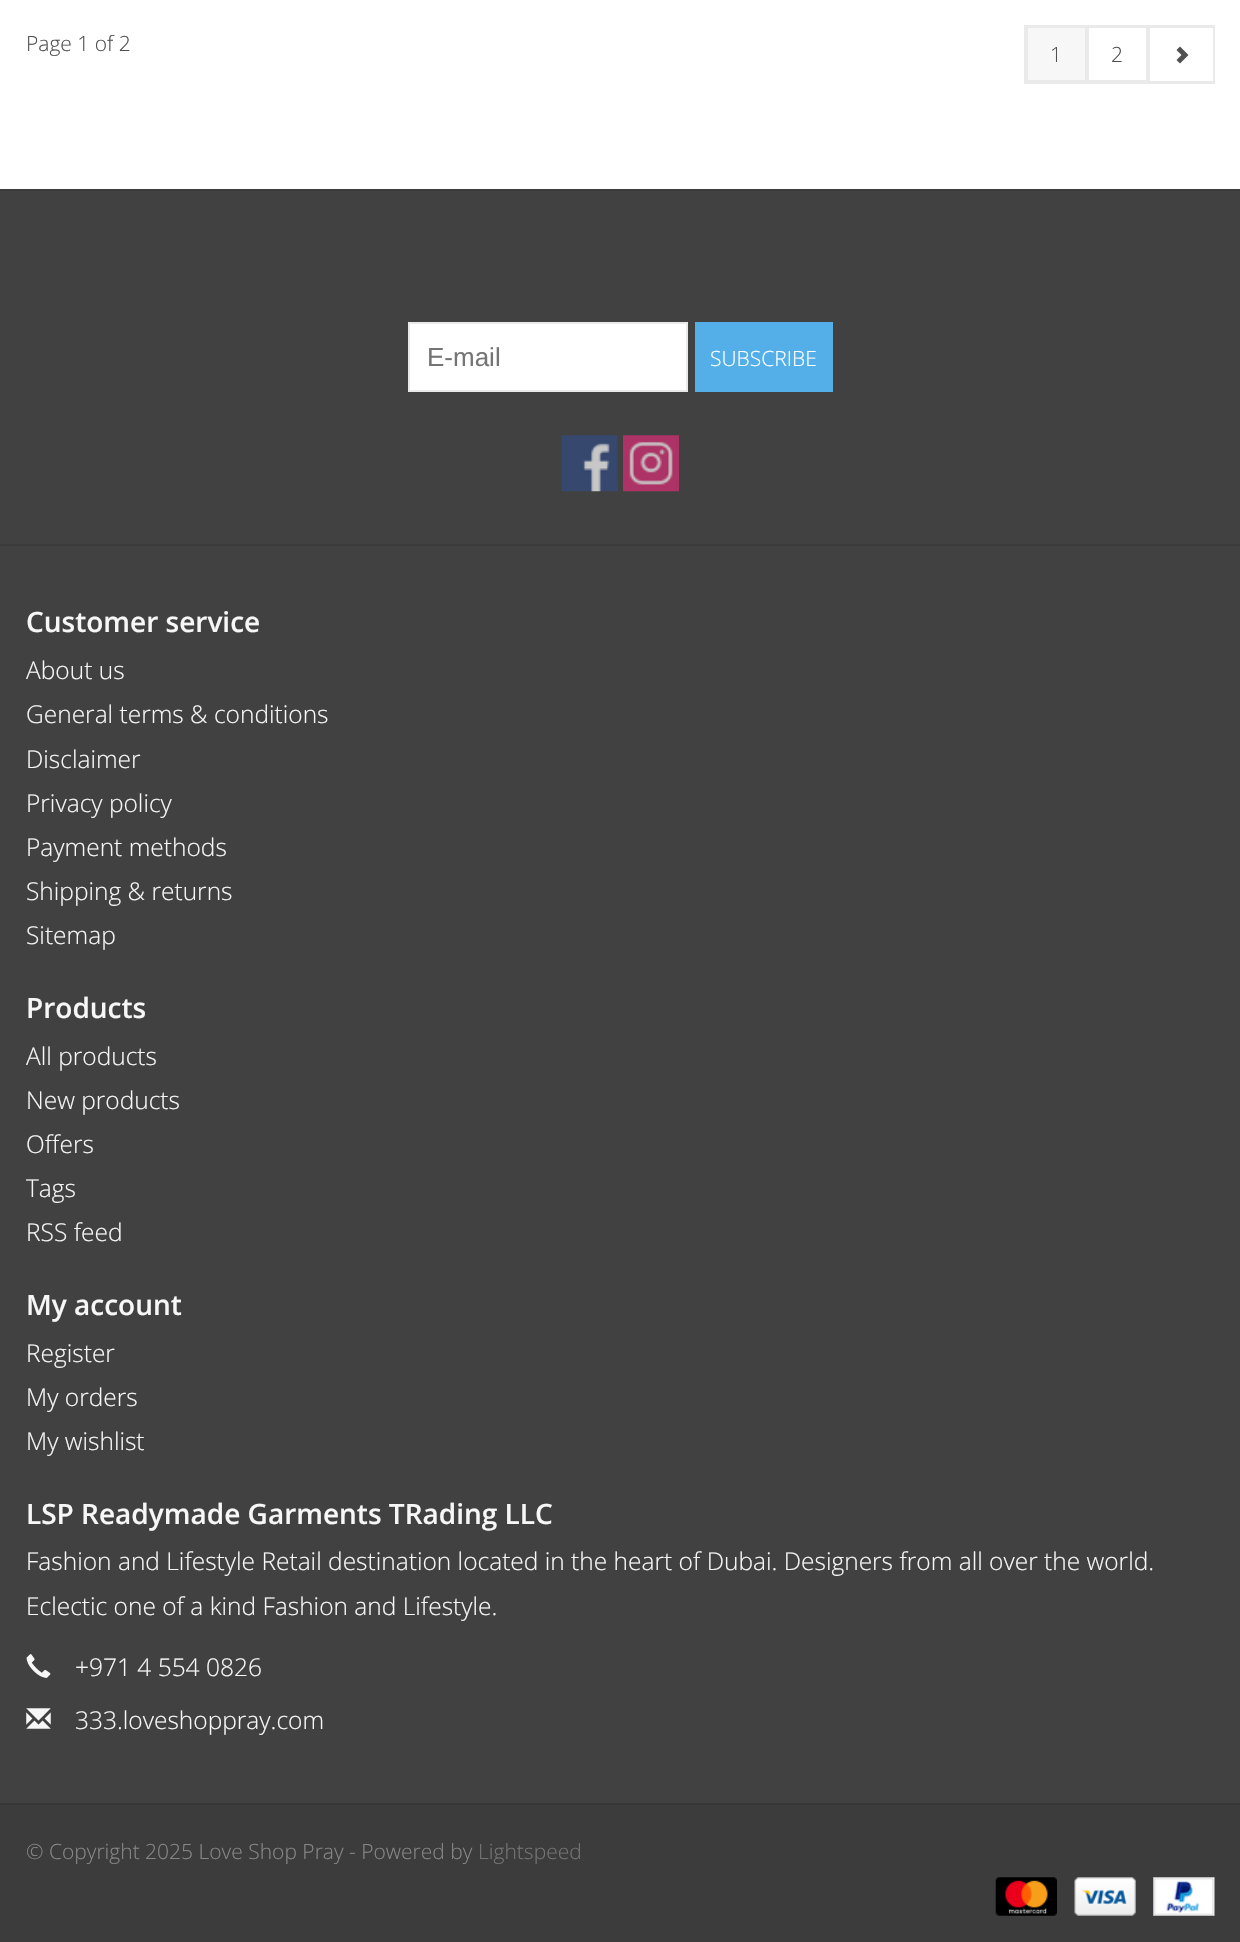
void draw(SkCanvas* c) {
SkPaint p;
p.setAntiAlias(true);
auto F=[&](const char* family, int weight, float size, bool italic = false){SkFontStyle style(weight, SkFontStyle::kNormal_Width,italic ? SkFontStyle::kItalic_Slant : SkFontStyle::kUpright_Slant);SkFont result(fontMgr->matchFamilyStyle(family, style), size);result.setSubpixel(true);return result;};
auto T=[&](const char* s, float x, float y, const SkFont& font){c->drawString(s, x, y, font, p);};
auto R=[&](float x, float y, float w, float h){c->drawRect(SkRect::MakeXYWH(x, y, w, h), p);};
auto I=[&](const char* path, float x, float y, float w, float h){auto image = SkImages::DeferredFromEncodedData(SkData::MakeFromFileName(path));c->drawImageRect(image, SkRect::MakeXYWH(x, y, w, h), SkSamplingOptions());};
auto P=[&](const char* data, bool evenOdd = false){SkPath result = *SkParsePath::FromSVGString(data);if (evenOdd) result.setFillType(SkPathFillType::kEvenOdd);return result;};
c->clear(0xffffffff);
auto f1 = F("Open Sans",300,21);
p.setColor(0xff505050);
T("Page 1 of 2",26,51,f1);
p.setStroke(true);
p.setStrokeWidth(2);
p.setColor(0xffeaeaea);
c->drawRect(SkRect::MakeXYWH(1025,26,189,57),p);
p.setStroke(false);
p.setColor(0xfff7f7f7);
c->drawRect(SkRect::MakeXYWH(1027,27,59,54),p);
p.setStroke(true);
p.setColor(0xffeaeaea);
c->drawRect(SkRect::MakeXYWH(1027,27,59,54),p);
p.setStroke(false);
p.setColor(0xff505050);
T("1",1050,62,f1);
p.setStroke(true);
p.setColor(0xffeaeaea);
c->drawRect(SkRect::MakeXYWH(1088,27,59,54),p);
p.setStroke(false);
p.setColor(0xff505050);
T("2",1111,62,f1);
p.setColor(0xffeaeaea);
R(1148,27,65,1);
R(1148,81,65,1);
R(1148,26,2,56);
p.setColor(0xff505050);
c->drawPath(P("M1176.5 60l5-5l-5-5l3.5-3.5l8.5 8.5l-8.5 8.5z"),p);
p.setColor(0xff414141);
R(0,191,1240,1612);
p.setColor(0xff3b3b3b);
R(0,189,1240,2);
p.setColor(0xffffffff);
c->drawRect(SkRect::MakeXYWH(409,323,278,68),p);
p.setStroke(true);
p.setColor(0xffe9e9e9);
c->drawRect(SkRect::MakeXYWH(409,323,278,68),p);
auto f2 = F("Liberation Sans",400,26);
p.setStroke(false);
p.setColor(0xff757575);
T("E-mail",427,366,f2);
p.setColor(0xff54afe9);
R(695,322,138,70);
p.setColor(0xffffffff);
T("SUBSCRIBE",710,366,f1);
I("1.png",561,435,57,57);
I("2.png",623,435,56,57);
p.setColor(0xff3b3b3b);
R(0,544,1240,2);
auto f3 = F("Open Sans",600,28);
p.setColor(0xfff7f7f7);
T("Customer service",26,632,f3);
auto f4 = F("Open Sans",300,24.5);
T("About us",26,679,f4);
T("General terms & conditions",26,723,f4);
T("Disclaimer",26,768,f4);
T("Privacy policy",26,812,f4);
T("Payment methods",26,856,f4);
T("Shipping & returns",26,900,f4);
T("Sitemap",26,944,f4);
T("Products",26,1018,f3);
T("All products",26,1065,f4);
T("New products",26,1109,f4);
T("Offers",26,1153,f4);
T("Tags",26,1197,f4);
T("RSS feed",26,1241,f4);
T("My account",26,1315,f3);
T("Register",26,1362,f4);
T("My orders",26,1406,f4);
T("My wishlist",26,1450,f4);
T("LSP Readymade Garments TRading LLC",26,1524,f3);
T("Fashion and Lifestyle Retail destination located in the heart of Dubai. Designers from all over the world.",26,1570,f4);
T("Eclectic one of a kind Fashion and Lifestyle.",26,1615,f4);
I("3.png",26,1654,25,24);
T("+971 4 554 0826",75,1676,f4);
I("4.png",26,1708,25,21);
T("333.loveshoppray.com",75,1729,f4);
p.setColor(0xff373737);
R(0,1803,1240,2);
p.setColor(0xff3c3c3c);
R(0,1805,1240,137);
p.setColor(0xff878787);
T("© Copyright 2025 Love Shop Pray - Powered by",26,1859,f1);
p.setColor(0xff757575);
T("Lightspeed",478,1859,f1);
I("5.png",995,1877,62,39);
I("6.png",1074,1877,62,39);
I("7.png",1153,1877,62,39);
}
